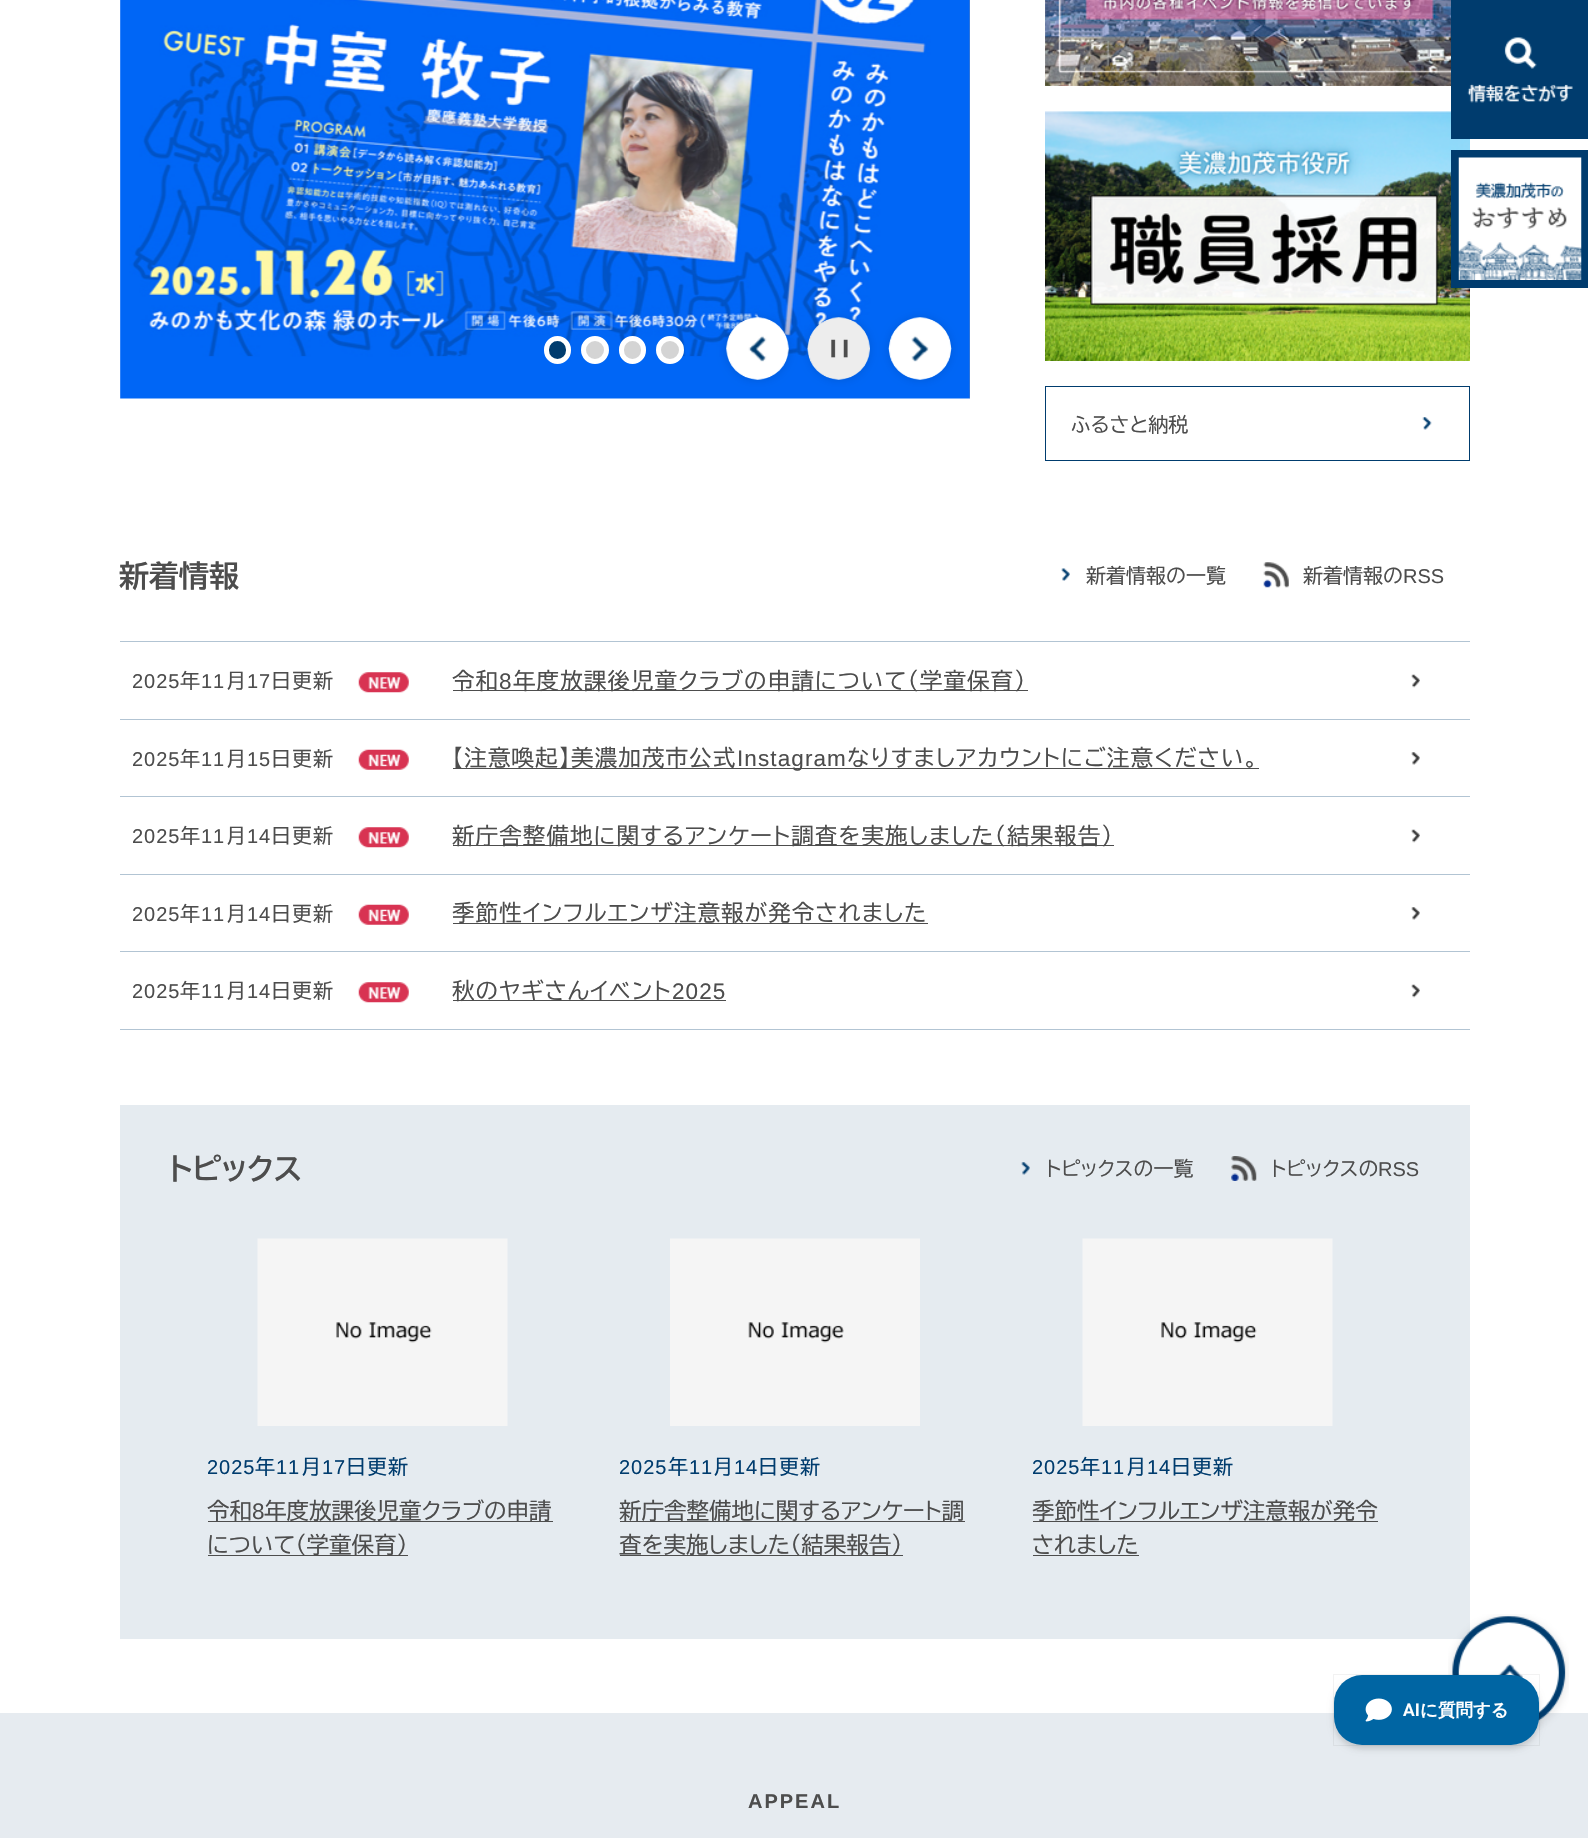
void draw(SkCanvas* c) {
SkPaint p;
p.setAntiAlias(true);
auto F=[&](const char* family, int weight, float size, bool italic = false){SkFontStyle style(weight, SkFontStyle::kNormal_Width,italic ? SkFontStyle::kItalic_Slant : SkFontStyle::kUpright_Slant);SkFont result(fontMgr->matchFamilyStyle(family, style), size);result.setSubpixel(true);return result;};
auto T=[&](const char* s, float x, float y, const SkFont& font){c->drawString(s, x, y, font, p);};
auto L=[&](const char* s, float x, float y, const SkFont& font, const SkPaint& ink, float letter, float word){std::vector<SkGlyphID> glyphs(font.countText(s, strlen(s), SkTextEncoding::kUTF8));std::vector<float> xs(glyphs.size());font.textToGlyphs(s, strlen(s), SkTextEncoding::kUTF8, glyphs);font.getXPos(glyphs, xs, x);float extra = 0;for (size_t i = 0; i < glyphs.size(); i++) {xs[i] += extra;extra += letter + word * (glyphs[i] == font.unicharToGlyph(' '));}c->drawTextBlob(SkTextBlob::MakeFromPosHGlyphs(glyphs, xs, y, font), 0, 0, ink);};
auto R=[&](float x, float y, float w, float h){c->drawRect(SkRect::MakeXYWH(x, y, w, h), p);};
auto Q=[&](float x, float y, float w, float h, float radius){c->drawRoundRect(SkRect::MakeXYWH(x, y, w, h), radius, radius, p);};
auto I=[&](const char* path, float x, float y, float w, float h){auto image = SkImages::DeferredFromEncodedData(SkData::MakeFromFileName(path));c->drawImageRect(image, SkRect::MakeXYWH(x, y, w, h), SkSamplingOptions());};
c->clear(0xffffffff);
I("8.png",1045,111,425,250);
p.setColor(0xff003c6e);
R(1451,0,137,139);
I("1.png",1467,37,106,66);
I("2.png",120,0,850,399);
I("3.png",969,0,1,399);
c->drawRoundRect(SkRect::MakeXYWH(546.5,338.5,22,23),11,11,p);
p.setStroke(true);
p.setStrokeWidth(5);
p.setColor(0xffffffff);
c->drawRoundRect(SkRect::MakeXYWH(546.5,338.5,22,23),11,11,p);
p.setStroke(false);
p.setColor(0xffd4d4d4);
c->drawCircle(595,350,11.5,p);
p.setStroke(true);
p.setColor(0xffffffff);
c->drawCircle(595,350,11.5,p);
p.setStroke(false);
p.setColor(0xffd4d4d4);
c->drawRoundRect(SkRect::MakeXYWH(621.5,338.5,22,23),11,11,p);
p.setStroke(true);
p.setColor(0xffffffff);
c->drawRoundRect(SkRect::MakeXYWH(621.5,338.5,22,23),11,11,p);
p.setStroke(false);
p.setColor(0xffd4d4d4);
c->drawCircle(670,350,11.5,p);
p.setStroke(true);
p.setColor(0xffffffff);
c->drawCircle(670,350,11.5,p);
p.setStroke(false);
p.setColor(0x1f000000);
p.setMaskFilter(SkMaskFilter::MakeBlur(kNormal_SkBlurStyle, 4.5));
c->drawRoundRect(SkRect::MakeXYWH(726,318,63,62),31,31,p);
p.setMaskFilter(nullptr);
I("4.png",726,317,63,63);
p.setMaskFilter(SkMaskFilter::MakeBlur(kNormal_SkBlurStyle, 4.5));
c->drawRoundRect(SkRect::MakeXYWH(808,318,62,62),31,31,p);
p.setMaskFilter(nullptr);
I("5.png",807,317,63,63);
p.setMaskFilter(SkMaskFilter::MakeBlur(kNormal_SkBlurStyle, 4.5));
c->drawRoundRect(SkRect::MakeXYWH(889,318,62,62),31,31,p);
p.setMaskFilter(nullptr);
I("6.png",888,317,64,63);
I("7.png",1045,0,406,86);
I("9.png",1422,417,10,13);
p.setStroke(true);
p.setStrokeWidth(1);
p.setColor(0xff003c6e);
c->drawRect(SkRect::MakeXYWH(1045.5,386.5,424,74),p);
auto f1 = F("BIZ UDPGothic",400,20);
p.setStroke(false);
p.setColor(0xff4d4d4d);
T("ふるさと納税",1071,432,f1);
auto f2 = F("BIZ UDPGothic",700,30);
T("新着情報",119,587,f2);
I("10.png",1061,568,9,13);
T("新着情報の一覧",1086,583,f1);
I("11.png",1263,562,26,26);
T("新着情報の",1303,583,f1);
auto f3 = F("Liberation Sans",400,20);
T("RSS",1403,583,f3);
p.setColor(0xffb2c4d3);
R(120,641,1350,1);
R(120,719,1350,1);
p.setColor(0xff4d4d4d);
L("2025",132,688,f3,p,1,0);
L("年",180,688,f1,p,1,0);
L("11",201,688,f3,p,1,0);
L("月",226,688,f1,p,1,0);
L("17",247,688,f3,p,1,0);
L("日更新",271,688,f1,p,1,0);
I("12.png",358,672,51,21);
I("13.png",1411,674,9,14);
R(453,690,575,1);
auto f4 = F("BIZ UDPGothic",400,22.5);
L("令和",452,689,f4,p,1.1,0);
auto f5 = F("Liberation Sans",400,22.5);
L("8",499,689,f5,p,1.1,0);
L("年度放課後児童クラブの申請について（学童保育）",513,689,f4,p,1.1,0);
p.setColor(0xffb2c4d3);
R(120,796,1350,1);
p.setColor(0xff4d4d4d);
L("2025",132,766,f3,p,1,0);
L("年",180,766,f1,p,1,0);
L("11",201,766,f3,p,1,0);
L("月",226,766,f1,p,1,0);
L("15",247,766,f3,p,1,0);
L("日更新",271,766,f1,p,1,0);
I("14.png",358,749,51,21);
I("15.png",1411,752,9,13);
R(453,768,806,1);
L("【注意喚起】美濃加茂市公式",452,766,f4,p,1.1,0);
L("Instagram",737,766,f5,p,1.1,0);
L("なりすましアカウントにご注意ください。",847,766,f4,p,1.1,0);
p.setColor(0xffb2c4d3);
R(120,874,1350,1);
p.setColor(0xff4d4d4d);
L("2025",132,843,f3,p,1,0);
L("年",180,843,f1,p,1,0);
L("11",201,843,f3,p,1,0);
L("月",226,843,f1,p,1,0);
L("14",247,843,f3,p,1,0);
L("日更新",271,843,f1,p,1,0);
I("12.png",358,827,51,21);
I("13.png",1411,829,9,14);
R(453,845,661,1);
L("新庁舎整備地に関するアンケート調査を実施しました（結果報告）",452,844,f4,p,1.1,0);
p.setColor(0xffb2c4d3);
R(120,951,1350,1);
p.setColor(0xff4d4d4d);
L("2025",132,921,f3,p,1,0);
L("年",180,921,f1,p,1,0);
L("11",201,921,f3,p,1,0);
L("月",226,921,f1,p,1,0);
L("14",247,921,f3,p,1,0);
L("日更新",271,921,f1,p,1,0);
I("14.png",358,904,51,21);
I("15.png",1411,907,9,13);
R(453,923,475,1);
L("季節性インフルエンザ注意報が発令されました",452,921,f4,p,1.1,0);
p.setColor(0xffb2c4d3);
R(120,1029,1350,1);
p.setColor(0xff4d4d4d);
L("2025",132,998,f3,p,1,0);
L("年",180,998,f1,p,1,0);
L("11",201,998,f3,p,1,0);
L("月",226,998,f1,p,1,0);
L("14",247,998,f3,p,1,0);
L("日更新",271,998,f1,p,1,0);
I("16.png",358,982,51,21);
I("13.png",1411,984,9,14);
R(453,1000,273,1);
L("秋のヤギさんイベント",452,999,f4,p,1.1,0);
L("2025",672,999,f5,p,1.1,0);
p.setColor(0xffe5ebf0);
R(120,1105,1350,534);
p.setColor(0xff4d4d4d);
T("トピックス",169,1180,f2);
I("17.png",1021,1162,9,13);
T("トピックスの一覧",1046,1176,f1);
I("18.png",1231,1156,26,25);
T("トピックスの",1271,1176,f1);
T("RSS",1378,1176,f3);
I("19.png",257,1238,251,188);
p.setColor(0xff003c6e);
L("2025",207,1474,f3,p,1,0);
L("年",255,1474,f1,p,1,0);
L("11",276,1474,f3,p,1,0);
L("月",301,1474,f1,p,1,0);
L("17",322,1474,f3,p,1,0);
L("日更新",346,1474,f1,p,1,0);
p.setColor(0xff4d4d4d);
R(208,1521,345,1);
T("令和",207,1519,f4);
T("8",252,1519,f5);
T("年度放課後児童クラブの申請",264,1519,f4);
R(208,1555,200,1);
T("について（学童保育）",207,1553,f4);
I("20.png",670,1238,250,188);
p.setColor(0xff003c6e);
L("2025",619,1474,f3,p,1,0);
L("年",668,1474,f1,p,1,0);
L("11",689,1474,f3,p,1,0);
L("月",713,1474,f1,p,1,0);
L("14",734,1474,f3,p,1,0);
L("日更新",758,1474,f1,p,1,0);
p.setColor(0xff4d4d4d);
R(620,1521,345,1);
T("新庁舎整備地に関するアンケート調",619,1519,f4);
R(620,1555,283,1);
T("査を実施しました（結果報告）",619,1553,f4);
I("19.png",1082,1238,251,188);
p.setColor(0xff003c6e);
L("2025",1032,1474,f3,p,1,0);
L("年",1080,1474,f1,p,1,0);
L("11",1101,1474,f3,p,1,0);
L("月",1126,1474,f1,p,1,0);
L("14",1147,1474,f3,p,1,0);
L("日更新",1171,1474,f1,p,1,0);
p.setColor(0xff4d4d4d);
R(1033,1521,345,1);
T("季節性インフルエンザ注意報が発令",1032,1519,f4);
T("されました",1032,1553,f4);
R(1033,1555,106,1);
p.setColor(0xffe6ebf0);
R(0,1713,1588,125);
auto f6 = F("Liberation Sans",700,20);
p.setColor(0xff4d4d4d);
L("APPEAL",748,1808,f6,p,2,0);
p.setColor(0xff003c6e);
R(1451,150,137,138);
I("21.png",1458,157,124,123);
I("22.png",1448,1614,121,116);
p.setColor(0x0d000000);
p.setMaskFilter(SkMaskFilter::MakeBlur(kNormal_SkBlurStyle, 2));
c->drawRoundRect(SkRect::MakeXYWH(1334,1679,205,70),28,28,p);
p.setMaskFilter(nullptr);
p.setColor(0x1a000000);
p.setMaskFilter(SkMaskFilter::MakeBlur(kNormal_SkBlurStyle, 3));
c->drawRoundRect(SkRect::MakeXYWH(1334,1679,205,70),28,28,p);
p.setMaskFilter(nullptr);
p.setStroke(true);
p.setColor(0x0d000000);
c->drawRect(SkRect::MakeXYWH(1333.5,1674.5,206,71),p);
p.setStroke(false);
p.setColor(0xff0065a3);
Q(1334,1675,205,70,28);
I("23.png",1365,1698,27,24);
auto f7 = F("Roboto",600,17.5);
p.setColor(0xffffffff);
T("AI",1403,1716,f7);
auto f8 = F("WenQuanYi Zen Hei",700,17.5);
T("に質問する",1420,1716,f8);
}
